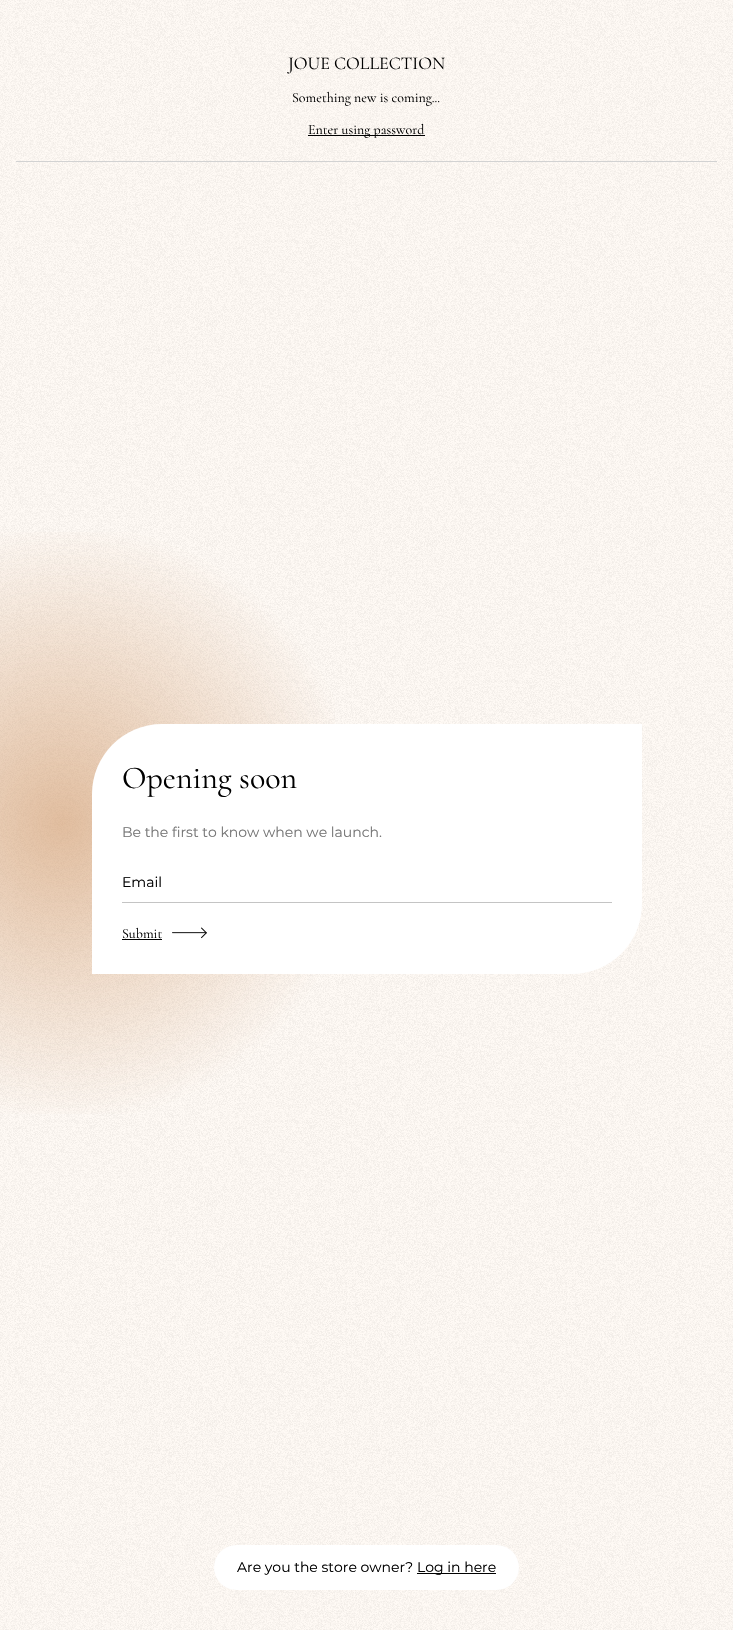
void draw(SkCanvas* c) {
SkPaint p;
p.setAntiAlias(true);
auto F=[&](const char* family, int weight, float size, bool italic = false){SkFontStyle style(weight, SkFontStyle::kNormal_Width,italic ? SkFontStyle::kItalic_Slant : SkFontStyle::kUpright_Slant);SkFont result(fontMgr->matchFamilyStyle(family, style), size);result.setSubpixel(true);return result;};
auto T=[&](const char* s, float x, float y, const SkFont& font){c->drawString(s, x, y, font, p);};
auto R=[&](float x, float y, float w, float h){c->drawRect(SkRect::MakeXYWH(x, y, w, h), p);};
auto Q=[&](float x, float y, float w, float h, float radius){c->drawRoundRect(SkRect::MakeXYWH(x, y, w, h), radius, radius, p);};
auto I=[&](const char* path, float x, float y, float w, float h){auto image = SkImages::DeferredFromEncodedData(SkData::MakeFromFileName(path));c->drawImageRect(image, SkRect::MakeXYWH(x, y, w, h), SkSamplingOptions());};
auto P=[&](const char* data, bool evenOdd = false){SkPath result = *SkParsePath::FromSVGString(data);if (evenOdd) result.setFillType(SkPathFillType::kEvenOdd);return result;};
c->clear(0xfffffaf5);
I("1.png",0,0,733,1630);
p.setColor(0xffd2d2d2);
R(16,161,701,1);
auto f1 = F("Cormorant",400,18);
p.setColor(0xff000000);
T("JOUE COLLECTION",288,69,f1);
auto f2 = F("Cormorant",400,14);
T("Something new is coming...",292,102,f2);
R(308,135,117,1);
T("Enter using password",308,134,f2);
{
const SkColor colors[] = {0xa6d29e72,0x00d29e72};
const float stops[] = {0,1};
p.setShader(SkGradientShader::MakeRadial({62,823}, 300, colors, stops, 2, SkTileMode::kClamp));
p.setAlpha(255);
}
R(0,532,335,582);
p.setShader(nullptr);
p.setColor(0xffffffff);
c->drawPath(P("M162 724h480v180c0 38.5-31.5 70-70 70h-480v-180c0-38.5 31.5-70 70-70z"),p);
auto f3 = F("Cormorant",400,32);
p.setColor(0xff000000);
T("Opening soon",122,788,f3);
auto f4 = F("Montserrat",400,14);
p.setColor(0xff757575);
T("Be the first to know when we launch.",122,837,f4);
p.setColor(0xff000000);
T("Email",122,887,f4);
p.setColor(0xffc4c4c4);
R(122,902,490,1);
p.setColor(0xff000000);
T("Submit",122,938,f2);
R(122,939,40,1);
I("2.png",172,927,35,12);
p.setColor(0xffffffff);
Q(214,1545,305,45,22.5);
p.setColor(0xff000000);
T("Are you the store owner?",237,1572,f4);
R(417,1573,79,1);
T("Log in here",417,1572,f4);
}
